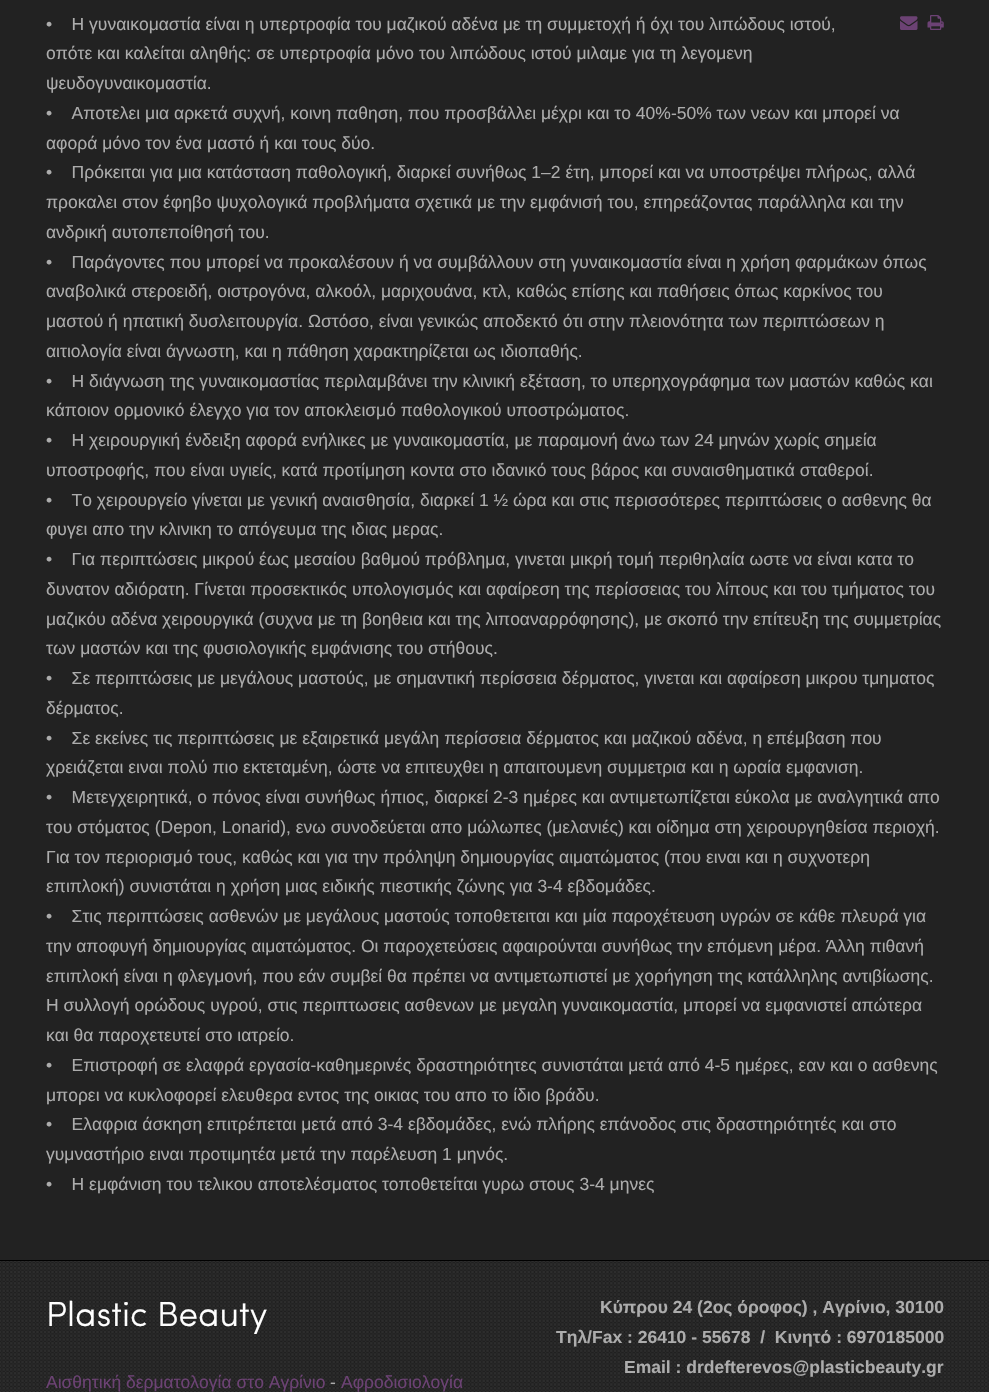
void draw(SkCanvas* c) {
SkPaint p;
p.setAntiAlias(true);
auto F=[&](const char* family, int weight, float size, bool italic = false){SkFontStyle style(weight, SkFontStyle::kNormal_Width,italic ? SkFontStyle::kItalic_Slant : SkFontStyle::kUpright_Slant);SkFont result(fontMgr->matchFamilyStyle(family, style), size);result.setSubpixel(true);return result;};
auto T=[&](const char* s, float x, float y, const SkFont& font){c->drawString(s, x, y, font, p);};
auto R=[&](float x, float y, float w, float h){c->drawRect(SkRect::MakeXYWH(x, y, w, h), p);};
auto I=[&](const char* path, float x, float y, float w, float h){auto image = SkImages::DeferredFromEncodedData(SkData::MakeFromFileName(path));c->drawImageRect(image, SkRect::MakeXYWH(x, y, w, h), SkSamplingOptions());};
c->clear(0xff222222);
auto f1 = F("Liberation Sans",400,17.5);
p.setColor(0xffacacac);
T("•    Η γυναικομαστία είναι η υπερτροφία του μαζικού αδένα με τη συμμετοχή ή όχι του λιπώδους ιστού,",46,30,f1);
I("1.png",900,16,18,14);
I("2.png",927,15,17,15);
T("οπότε και καλείται αληθής: σε υπερτροφία μόνο του λιπώδους ιστού μιλαμε για τη λεγομενη",46,59,f1);
T("ψευδογυναικομαστία.",46,89,f1);
T("•    Αποτελει μια αρκετά συχνή, κοινη παθηση, που προσβάλλει μέχρι και το 40%-50% των νεων και μπορεί να",46,119,f1);
T("αφορά μόνο τον ένα μαστό ή και τους δύο.",46,149,f1);
T("•    Πρόκειται για μια κατάσταση παθολογική, διαρκεί συνήθως 1–2 έτη, μπορεί και να υποστρέψει πλήρως, αλλά",46,178,f1);
T("προκαλει στον έφηβο ψυχολογικά προβλήματα σχετικά με την εμφάνισή του, επηρεάζοντας παράλληλα και την",46,208,f1);
T("ανδρική αυτοπεποίθησή του.",46,238,f1);
T("•    Παράγοντες που μπορεί να προκαλέσουν ή να συμβάλλουν στη γυναικομαστία είναι η χρήση φαρμάκων όπως",46,268,f1);
T("αναβολικά στεροειδή, οιστρογόνα, αλκοόλ, μαριχουάνα, κτλ, καθώς επίσης και παθήσεις όπως καρκίνος του",46,297,f1);
T("μαστού ή ηπατική δυσλειτουργία. Ωστόσο, είναι γενικώς αποδεκτό ότι στην πλειονότητα των περιπτώσεων η",46,327,f1);
T("αιτιολογία είναι άγνωστη, και η πάθηση χαρακτηρίζεται ως ιδιοπαθής.",46,357,f1);
T("•    Η διάγνωση της γυναικομαστίας περιλαμβάνει την κλινική εξέταση, το υπερηχογράφημα των μαστών καθώς και",46,387,f1);
T("κάποιον ορμονικό έλεγχο για τον αποκλεισμό παθολογικού υποστρώματος.",46,416,f1);
T("•    Η χειρουργική ένδειξη αφορά ενήλικες με γυναικομαστία, με παραμονή άνω των 24 μηνών χωρίς σημεία",46,446,f1);
T("υποστροφής, που είναι υγιείς, κατά προτίμηση κοντα στο ιδανικό τους βάρος και συναισθηματικά σταθεροί.",46,476,f1);
T("•    Το χειρουργείο γίνεται με γενική αναισθησία, διαρκεί 1 ½ ώρα και στις περισσότερες περιπτώσεις ο ασθενης θα",46,506,f1);
T("φυγει απο την κλινικη το απόγευμα της ιδιας μερας.",46,535,f1);
T("•    Για περιπτώσεις μικρού έως μεσαίου βαθμού πρόβλημα, γινεται μικρή τομή περιθηλαία ωστε να είναι κατα το",46,565,f1);
T("δυνατον αδιόρατη. Γίνεται προσεκτικός υπολογισμός και αφαίρεση της περίσσειας του λίπους και του τμήματος του",46,595,f1);
T("μαζικόυ αδένα χειρουργικά (συχνα με τη βοηθεια και της λιποαναρρόφησης), με σκοπό την επίτευξη της συμμετρίας",46,625,f1);
T("των μαστών και της φυσιολογικής εμφάνισης του στήθους.",46,654,f1);
T("•    Σε περιπτώσεις με μεγάλους μαστούς, με σημαντική περίσσεια δέρματος, γινεται και αφαίρεση μικρου τμηματος",46,684,f1);
T("δέρματος.",46,714,f1);
T("•    Σε εκείνες τις περιπτώσεις με εξαιρετικά μεγάλη περίσσεια δέρματος και μαζικού αδένα, η επέμβαση που",46,744,f1);
T("χρειάζεται ειναι πολύ πιο εκτεταμένη, ώστε να επιτευχθει η απαιτουμενη συμμετρια και η ωραία εμφανιση.",46,773,f1);
T("•    Μετεγχειρητικά, ο πόνος είναι συνήθως ήπιος, διαρκεί 2-3 ημέρες και αντιμετωπίζεται εύκολα με αναλγητικά απο",46,803,f1);
T("του στόματος (Depon, Lonarid), ενω συνοδεύεται απο μώλωπες (μελανιές) και οίδημα στη χειρουργηθείσα περιοχή.",46,833,f1);
T("Για τον περιορισμό τους, καθώς και για την πρόληψη δημιουργίας αιματώματος (που ειναι και η συχνοτερη",46,863,f1);
T("επιπλοκή) συνιστάται η χρήση μιας ειδικής πιεστικής ζώνης για 3-4 εβδομάδες.",46,892,f1);
T("•    Στις περιπτώσεις ασθενών με μεγάλους μαστούς τοποθετειται και μία παροχέτευση υγρών σε κάθε πλευρά για",46,922,f1);
T("την αποφυγή δημιουργίας αιματώματος. Οι παροχετεύσεις αφαιρούνται συνήθως την επόμενη μέρα. Άλλη πιθανή",46,952,f1);
T("επιπλοκή είναι η φλεγμονή, που εάν συμβεί θα πρέπει να αντιμετωπιστεί με χορήγηση της κατάλληλης αντιβίωσης.",46,982,f1);
T("Η συλλογή ορώδους υγρού, στις περιπτωσεις ασθενων με μεγαλη γυναικομαστία, μπορεί να εμφανιστεί απώτερα",46,1011,f1);
T("και θα παροχετευτεί στο ιατρείο.",46,1041,f1);
T("•    Επιστροφή σε ελαφρά εργασία-καθημερινές δραστηριότητες συνιστάται μετά από 4-5 ημέρες, εαν και ο ασθενης",46,1071,f1);
T("μπορει να κυκλοφορεί ελευθερα εντος της οικιας του απο το ίδιο βράδυ.",46,1101,f1);
T("•    Ελαφρια άσκηση επιτρέπεται μετά από 3-4 εβδομάδες, ενώ πλήρης επάνοδος στις δραστηριότητές και στο",46,1130,f1);
T("γυμναστήριο ειναι προτιμητέα μετά την παρέλευση 1 μηνός.",46,1160,f1);
T("•    H εμφάνιση του τελικου αποτελέσματος τοποθετείται γυρω στους 3-4 μηνες",46,1190,f1);
p.setColor(0xff2d2d2d);
R(0,1261,989,131);
I("3.png",0,1261,989,131);
p.setColor(0xff000000);
R(0,1260,989,1);
auto f2 = F("Sofia",400,35);
p.setColor(0xffffffff);
T("Plastic Beauty",46,1326,f2);
p.setColor(0xff6c4274);
T("Αισθητική δερματολογία στο Αγρίνιο",46,1388,f1);
p.setColor(0xffacacac);
T("-",330,1388,f1);
p.setColor(0xff6c4274);
T("Αφροδισιολογία",341,1388,f1);
auto f3 = F("Liberation Sans",700,17.5);
p.setColor(0xffacacac);
T("Κύπρου 24 (2ος όροφος) , Αγρίνιο, 30100",600,1313,f3);
T("Τηλ/Fax : 26410 - 55678  /  Κινητό : 6970185000",556,1343,f3);
T("Email : drdefterevos@plasticbeauty.gr",624,1373,f3);
}
